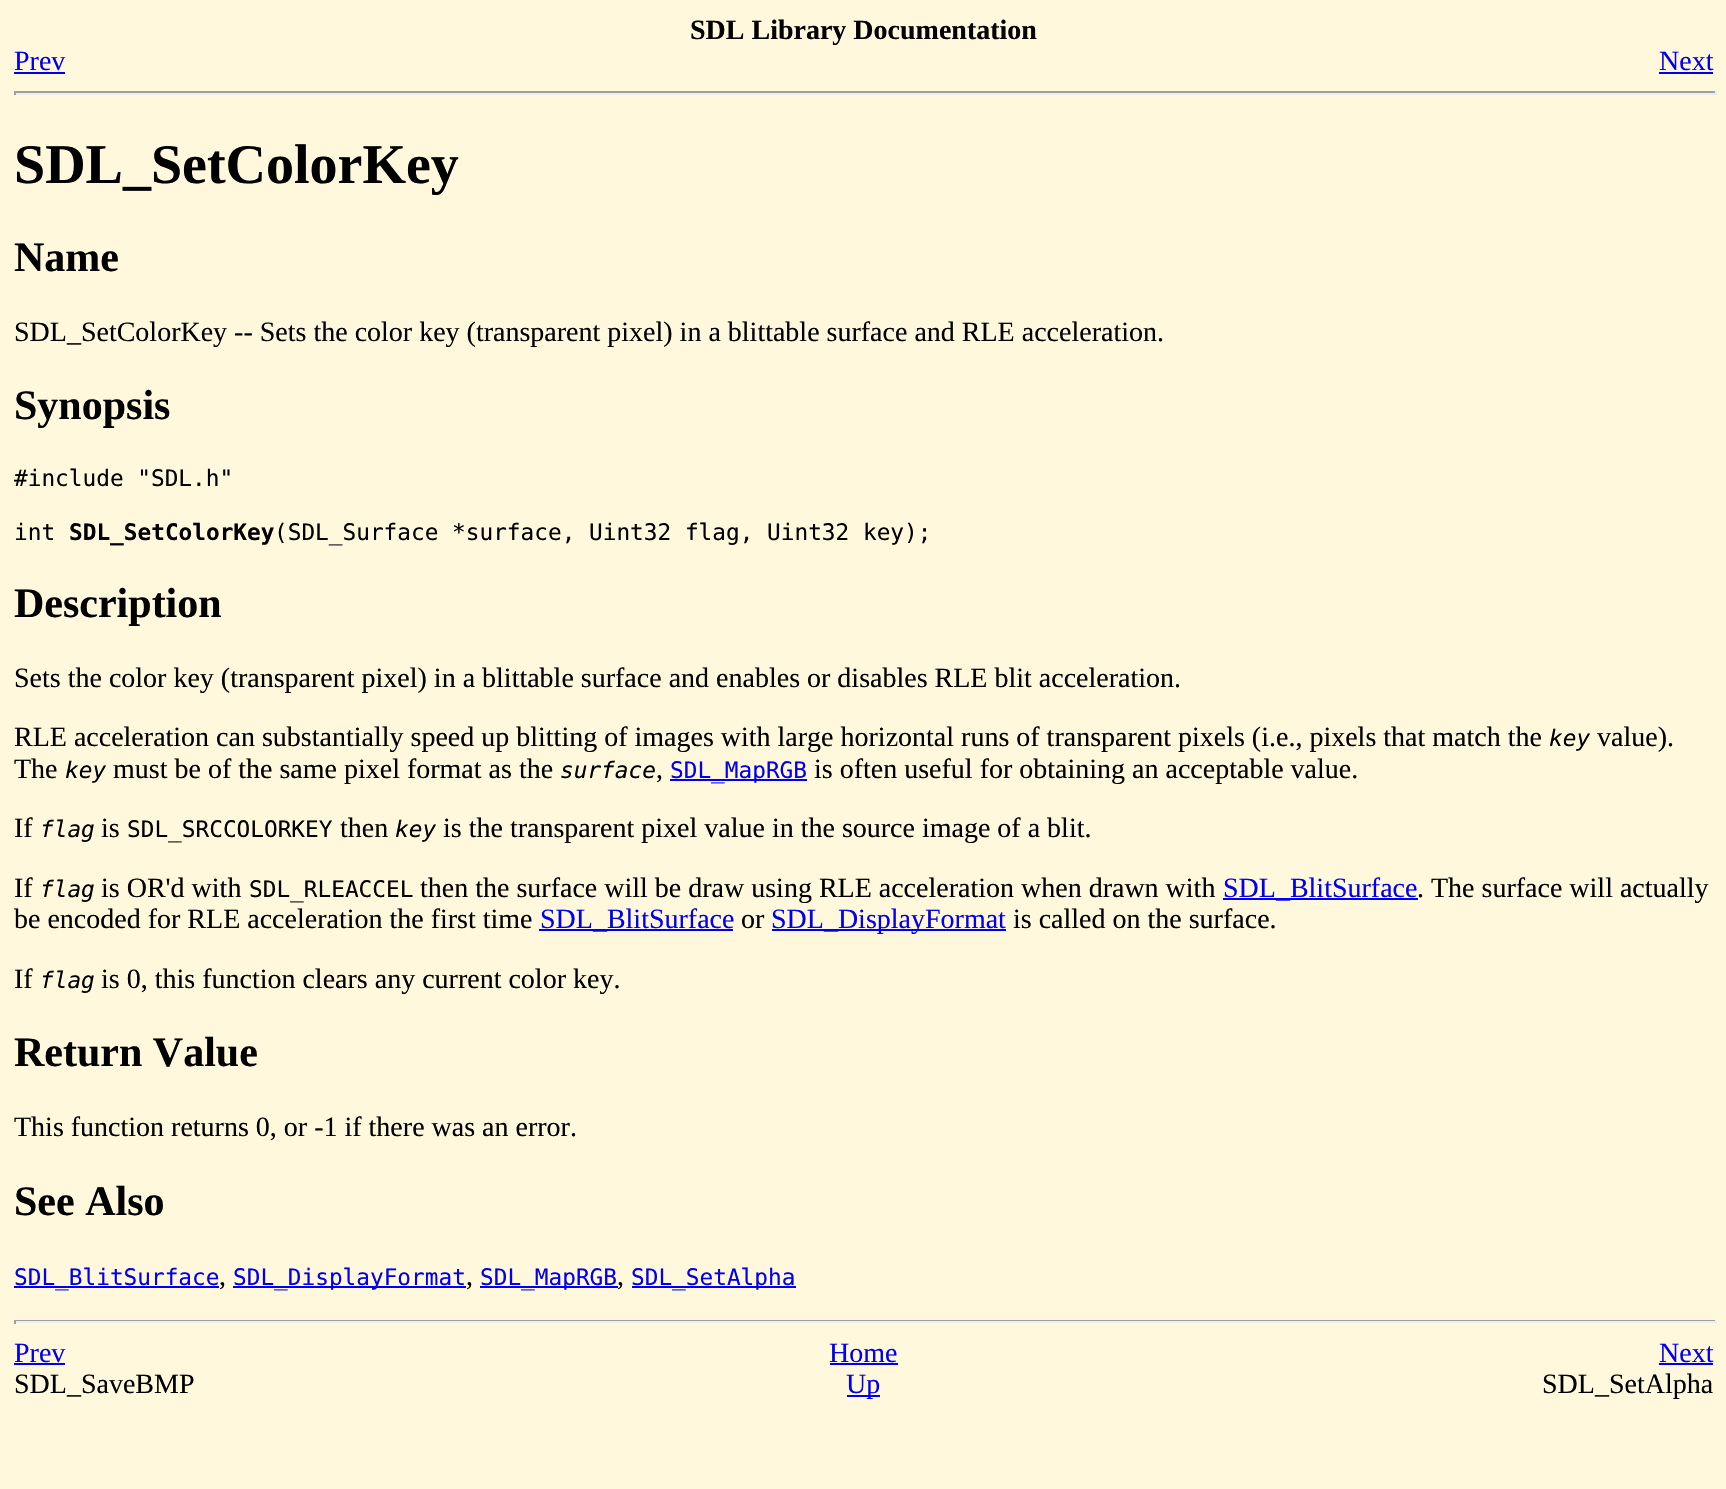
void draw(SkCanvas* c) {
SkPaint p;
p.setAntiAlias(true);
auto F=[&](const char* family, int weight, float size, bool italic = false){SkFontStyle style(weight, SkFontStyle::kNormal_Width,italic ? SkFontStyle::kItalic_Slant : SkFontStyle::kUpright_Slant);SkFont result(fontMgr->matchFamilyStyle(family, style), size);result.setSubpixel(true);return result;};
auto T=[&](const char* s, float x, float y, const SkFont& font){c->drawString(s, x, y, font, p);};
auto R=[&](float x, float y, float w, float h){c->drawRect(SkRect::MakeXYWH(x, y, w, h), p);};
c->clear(0xfffff8dc);
auto f1 = F("Liberation Serif",700,28);
p.setColor(0xff000000);
T("SDL Library Documentation",690,39,f1);
auto f2 = F("Liberation Serif",400,28);
p.setColor(0xff0000ee);
T("Prev",14,70,f2);
R(14,72,51,2);
T("Next",1659,70,f2);
R(1659,72,54,2);
p.setColor(0xff9f9f9f);
R(14,91,1703,2);
p.setColor(0xffeeeeee);
R(1715,91,2,4);
R(14,93,1703,2);
p.setColor(0xff9f9f9f);
R(14,91,2,4);
auto f3 = F("Liberation Serif",700,56);
p.setColor(0xff000000);
T("SDL_SetColorKey",14,183,f3);
auto f4 = F("Liberation Serif",700,42);
T("Name",14,271,f4);
T("SDL_SetColorKey -- Sets the color key (transparent pixel) in a blittable surface and RLE acceleration.",14,341,f2);
T("Synopsis",14,419,f4);
auto f5 = F("DejaVu Sans Mono",400,22.75);
T("#include \"SDL.h\"",14,486,f5);
T("int",14,540,f5);
auto f6 = F("DejaVu Sans Mono",700,22.75);
T("SDL_SetColorKey",69,540,f6);
T("(SDL_Surface *surface, Uint32 flag, Uint32 key);",274,540,f5);
T("Description",14,617,f4);
T("Sets the color key (transparent pixel) in a blittable surface and enables or disables RLE blit acceleration.",14,687,f2);
T("RLE acceleration can substantially speed up blitting of images with large horizontal runs of transparent pixels (i.e., pixels that match the",14,746,f2);
auto f7 = F("DejaVu Sans Mono",400,22.75,true);
T("key",1549,746,f7);
T("value).",1597,746,f2);
T("The",14,778,f2);
T("key",65,778,f7);
T("must be of the same pixel format as the",113,778,f2);
T("surface",560,778,f7);
T(",",656,778,f2);
p.setColor(0xff0000ee);
R(670,779,137,2);
T("SDL_MapRGB",670,778,f5);
p.setColor(0xff000000);
T("is often useful for obtaining an acceptable value.",814,778,f2);
T("If",14,837,f2);
T("flag",40,837,f7);
T("is",101,837,f2);
T("SDL_SRCCOLORKEY",127,837,f5);
T("then",340,837,f2);
T("key",395,837,f7);
T("is the transparent pixel value in the source image of a blit.",443,837,f2);
T("If",14,897,f2);
T("flag",40,897,f7);
T("is OR'd with",101,897,f2);
T("SDL_RLEACCEL",249,897,f5);
T("then the surface will be draw using RLE acceleration when drawn with",420,897,f2);
p.setColor(0xff0000ee);
R(1223,898,195,2);
T("SDL_BlitSurface",1223,897,f2);
p.setColor(0xff000000);
T(". The surface will actually",1417,897,f2);
T("be encoded for RLE acceleration the first time",14,928,f2);
p.setColor(0xff0000ee);
R(539,929,194,2);
T("SDL_BlitSurface",540,928,f2);
p.setColor(0xff000000);
T("or",741,928,f2);
p.setColor(0xff0000ee);
R(772,929,234,2);
T("SDL_DisplayFormat",771,928,f2);
p.setColor(0xff000000);
T("is called on the surface.",1013,928,f2);
T("If",14,988,f2);
T("flag",40,988,f7);
T("is 0, this function clears any current color key.",101,988,f2);
T("Return Value",14,1066,f4);
T("This function returns 0, or -1 if there was an error.",14,1136,f2);
T("See Also",14,1215,f4);
p.setColor(0xff0000ee);
R(14,1286,205,2);
T("SDL_BlitSurface",14,1285,f5);
p.setColor(0xff000000);
T(",",219,1285,f2);
p.setColor(0xff0000ee);
R(233,1286,233,2);
T("SDL_DisplayFormat",233,1285,f5);
p.setColor(0xff000000);
T(",",466,1285,f2);
p.setColor(0xff0000ee);
R(480,1286,138,2);
T("SDL_MapRGB",480,1285,f5);
p.setColor(0xff000000);
T(",",617,1285,f2);
p.setColor(0xff0000ee);
R(632,1286,164,2);
T("SDL_SetAlpha",631,1285,f5);
p.setColor(0xff9f9f9f);
R(14,1320,1703,1);
p.setColor(0xffeeeeee);
R(1715,1320,2,4);
R(14,1321,1703,2);
p.setColor(0xff9f9f9f);
R(14,1320,2,4);
p.setColor(0xff0000ee);
T("Prev",14,1362,f2);
R(14,1363,51,2);
T("Home",829,1362,f2);
R(830,1363,68,2);
T("Next",1659,1362,f2);
R(1659,1363,54,2);
p.setColor(0xff000000);
T("SDL_SaveBMP",14,1393,f2);
p.setColor(0xff0000ee);
R(847,1395,33,2);
T("Up",846,1393,f2);
p.setColor(0xff000000);
T("SDL_SetAlpha",1542,1393,f2);
}
